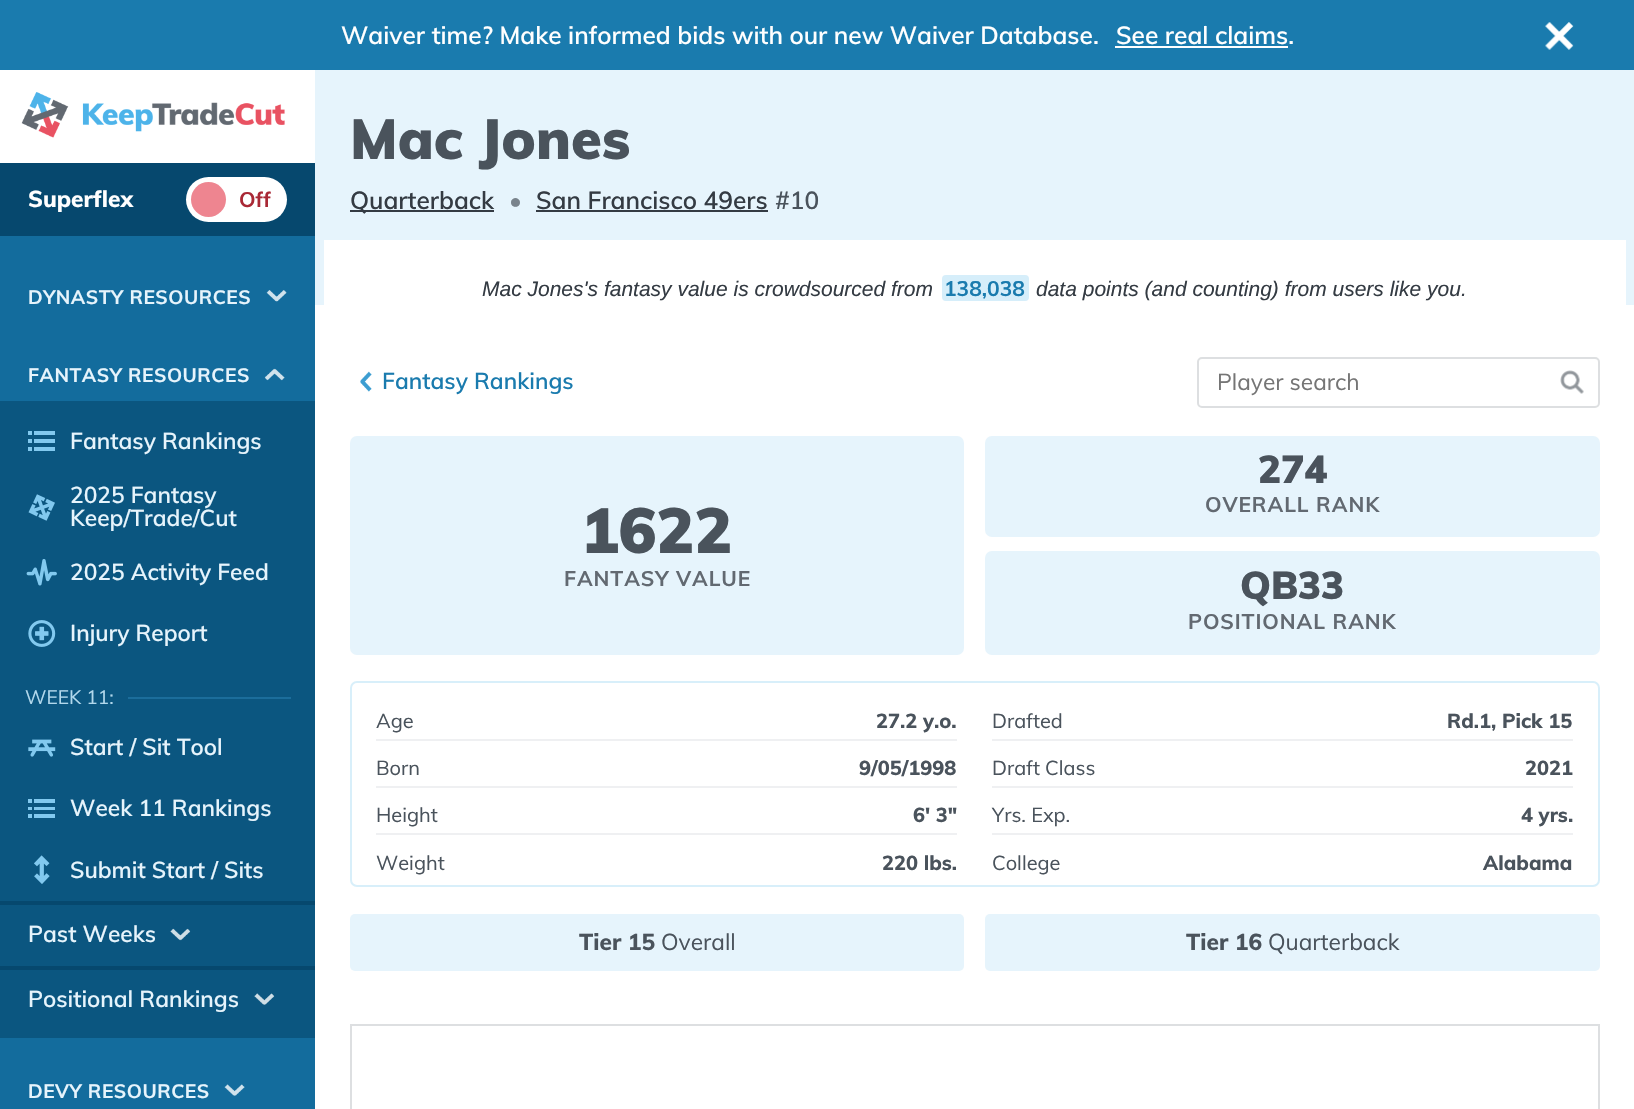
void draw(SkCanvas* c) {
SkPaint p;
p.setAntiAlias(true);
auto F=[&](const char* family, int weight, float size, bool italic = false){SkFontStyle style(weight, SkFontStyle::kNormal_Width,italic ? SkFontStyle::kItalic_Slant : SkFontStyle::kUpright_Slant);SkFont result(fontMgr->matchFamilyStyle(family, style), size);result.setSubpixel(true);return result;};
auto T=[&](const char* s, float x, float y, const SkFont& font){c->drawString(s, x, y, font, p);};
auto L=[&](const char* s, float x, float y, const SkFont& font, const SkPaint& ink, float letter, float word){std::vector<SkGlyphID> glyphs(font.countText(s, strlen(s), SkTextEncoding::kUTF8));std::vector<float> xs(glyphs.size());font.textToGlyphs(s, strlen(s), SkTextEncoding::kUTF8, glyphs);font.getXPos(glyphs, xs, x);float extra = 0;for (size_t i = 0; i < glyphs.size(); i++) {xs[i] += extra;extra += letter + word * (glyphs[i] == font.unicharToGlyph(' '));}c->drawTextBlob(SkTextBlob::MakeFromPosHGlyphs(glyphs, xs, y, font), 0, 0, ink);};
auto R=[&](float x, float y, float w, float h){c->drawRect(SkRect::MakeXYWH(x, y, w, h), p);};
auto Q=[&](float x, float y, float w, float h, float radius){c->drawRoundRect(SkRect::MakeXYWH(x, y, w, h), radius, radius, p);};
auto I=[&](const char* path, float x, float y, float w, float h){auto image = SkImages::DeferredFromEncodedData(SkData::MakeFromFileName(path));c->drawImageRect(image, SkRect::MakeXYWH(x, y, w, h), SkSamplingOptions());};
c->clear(0xffffffff);
p.setColor(0xff1a7bae);
R(0,0,1634,70);
auto f1 = F("Muli",600,24.5);
p.setColor(0xffffffff);
T("Waiver time? Make informed bids with our new Waiver Database.",341,44,f1);
T("See real claims.",1116,44,f1);
R(1115,46,173,2);
I("1.png",1545,22,29,28);
p.setColor(0xff136c9d);
R(0,236,315,873);
I("2.png",21,92,264,46);
p.setColor(0xff06486e);
R(0,163,315,73);
auto f2 = F("Muli",800,22.75);
p.setColor(0xffffffff);
T("Superflex",28,207,f2);
Q(186,177,101,45,22.5);
p.setColor(0xffee8590);
c->drawCircle(208.5,199.5,17.5,p);
auto f3 = F("Muli",700,21);
p.setColor(0xffa92835);
T("Off",239,207,f3);
auto f4 = F("Muli",700,19.25);
p.setColor(0xffe6f4fc);
L("DYNASTY RESOURCES",28,304,f4,p,.5,0);
I("3.png",266,290,21,12);
L("FANTASY RESOURCES",28,382,f4,p,.5,0);
I("4.png",264,368,21,13);
p.setColor(0xff0b5680);
R(0,401,315,637);
I("5.png",28,431,27,20);
auto f5 = F("Muli",600,22.75);
p.setColor(0xffe6f4fc);
T("Fantasy Rankings",70,449,f5);
I("6.png",28,494,27,27);
T("2025 Fantasy",70,503,f5);
T("Keep/Trade/Cut",70,526,f5);
I("7.png",26,559,31,27);
T("2025 Activity Feed",70,580,f5);
I("8.png",28,620,28,27);
T("Injury Report",70,641,f5);
auto f6 = F("Muli",400,19.25);
p.setColor(0xffb2d8ec);
T("WEEK 11:",25,704,f6);
p.setColor(0xff1b6d9b);
R(128,697,163,2);
I("9.png",28,739,28,18);
p.setColor(0xffe6f4fc);
T("Start / Sit Tool",70,755,f5);
I("10.png",28,799,27,19);
T("Week 11 Rankings",70,816,f5);
I("11.png",34,855,16,29);
T("Submit Start / Sits",70,878,f5);
p.setColor(0xff06486e);
R(0,901,315,4);
p.setColor(0xffe6f4fc);
T("Past Weeks",28,942,f5);
I("12.png",170,928,21,13);
p.setColor(0xff06486e);
R(0,966,315,4);
p.setColor(0xffe6f4fc);
T("Positional Rankings",28,1007,f5);
I("13.png",254,993,21,12);
L("DEVY RESOURCES",28,1098,f4,p,.5,0);
I("14.png",224,1084,21,12);
R(315,70,1319,235);
auto f7 = F("Muli",900,56);
p.setColor(0xff4a535c);
T("Mac Jones",350,159,f7);
p.setColor(0xff343b43);
R(350,210,144,2);
T("Quarterback",350,209,f1);
p.setColor(0xff79838c);
T("•",509,209,f1);
p.setColor(0xff343b43);
T("San Francisco 49ers",536,209,f1);
R(536,210,232,2);
p.setColor(0xff4a535c);
T("#10",775,209,f1);
p.setColor(0xffffffff);
R(324,240,1302,65);
auto f8 = F("Liberation Sans",400,21,true);
p.setColor(0xff343b43);
T("Mac Jones's fantasy value is crowdsourced from",482,296,f8);
p.setColor(0xffd6eefa);
Q(942,275,87,26,4);
p.setColor(0xff1a7bae);
T("138,038",944,296,f3);
p.setColor(0xff343b43);
T("data points (and counting) from users like you.",1036,296,f8);
I("15.png",360,371,12,21);
p.setColor(0xff1a7bae);
T("Fantasy Rankings",382,389,f5);
p.setStroke(true);
p.setStrokeWidth(2);
p.setColor(0xffdddfe1);
c->drawRoundRect(SkRect::MakeXYWH(1198,358,401,49),4,4,p);
auto f9 = F("Muli",400,22.75);
p.setStroke(false);
p.setColor(0xff757575);
T("Player search",1217,390,f9);
I("16.png",1560,370,24,24);
p.setColor(0xffe6f4fc);
Q(350,436,614,219,7);
auto f10 = F("Muli",900,63);
p.setColor(0xff4a535c);
T("1622",581,553,f10);
p.setColor(0xff626971);
L("FANTASY VALUE",564,586,f3,p,.9,0);
p.setColor(0xffe6f4fc);
Q(985,436,615,101,7);
auto f11 = F("Muli",900,38.5);
p.setColor(0xff4a535c);
T("274",1258,483,f11);
p.setColor(0xff626971);
L("OVERALL RANK",1205,512,f3,p,.9,0);
p.setColor(0xffe6f4fc);
Q(985,551,615,104,7);
p.setColor(0xff4a535c);
T("QB33",1240,599,f11);
p.setColor(0xff626971);
L("POSITIONAL RANK",1188,629,f3,p,.9,0);
p.setStroke(true);
p.setColor(0xffd8effa);
c->drawRoundRect(SkRect::MakeXYWH(351,682,1248,204),6,6,p);
p.setStroke(false);
p.setColor(0xffeff0f2);
R(376,739,581,2);
auto f12 = F("Muli",400,20);
p.setColor(0xff4a535c);
T("Age",376,728,f12);
auto f13 = F("Muli",800,20);
T("27.2 y.o.",876,728,f13);
p.setColor(0xffeff0f2);
R(376,786,581,2);
p.setColor(0xff4a535c);
T("Born",376,775,f12);
T("9/05/1998",859,775,f13);
p.setColor(0xffeff0f2);
R(376,833,581,2);
p.setColor(0xff4a535c);
T("Height",376,822,f12);
T("6' 3\"",913,822,f13);
T("Weight",376,870,f12);
T("220 lbs.",882,870,f13);
p.setColor(0xffeff0f2);
R(992,739,581,2);
p.setColor(0xff4a535c);
T("Drafted",992,728,f12);
T("Rd.1, Pick 15",1447,728,f13);
p.setColor(0xffeff0f2);
R(992,786,581,2);
p.setColor(0xff4a535c);
T("Draft Class",992,775,f12);
T("2021",1525,775,f13);
p.setColor(0xffeff0f2);
R(992,833,581,2);
p.setColor(0xff4a535c);
T("Yrs. Exp.",992,822,f12);
T("4 yrs.",1521,822,f13);
T("College",992,870,f12);
T("Alabama",1483,870,f13);
p.setColor(0xffe6f4fc);
Q(350,914,614,57,5);
p.setColor(0xff4a535c);
T("Tier 15",579,950,f2);
T("Overall",661,950,f9);
p.setColor(0xffe6f4fc);
Q(985,914,615,57,5);
p.setColor(0xff4a535c);
T("Tier 16",1186,950,f2);
T("Quarterback",1268,950,f9);
p.setStroke(true);
p.setColor(0xffdddfe1);
c->drawRect(SkRect::MakeXYWH(351,1025,1248,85),p);
}
